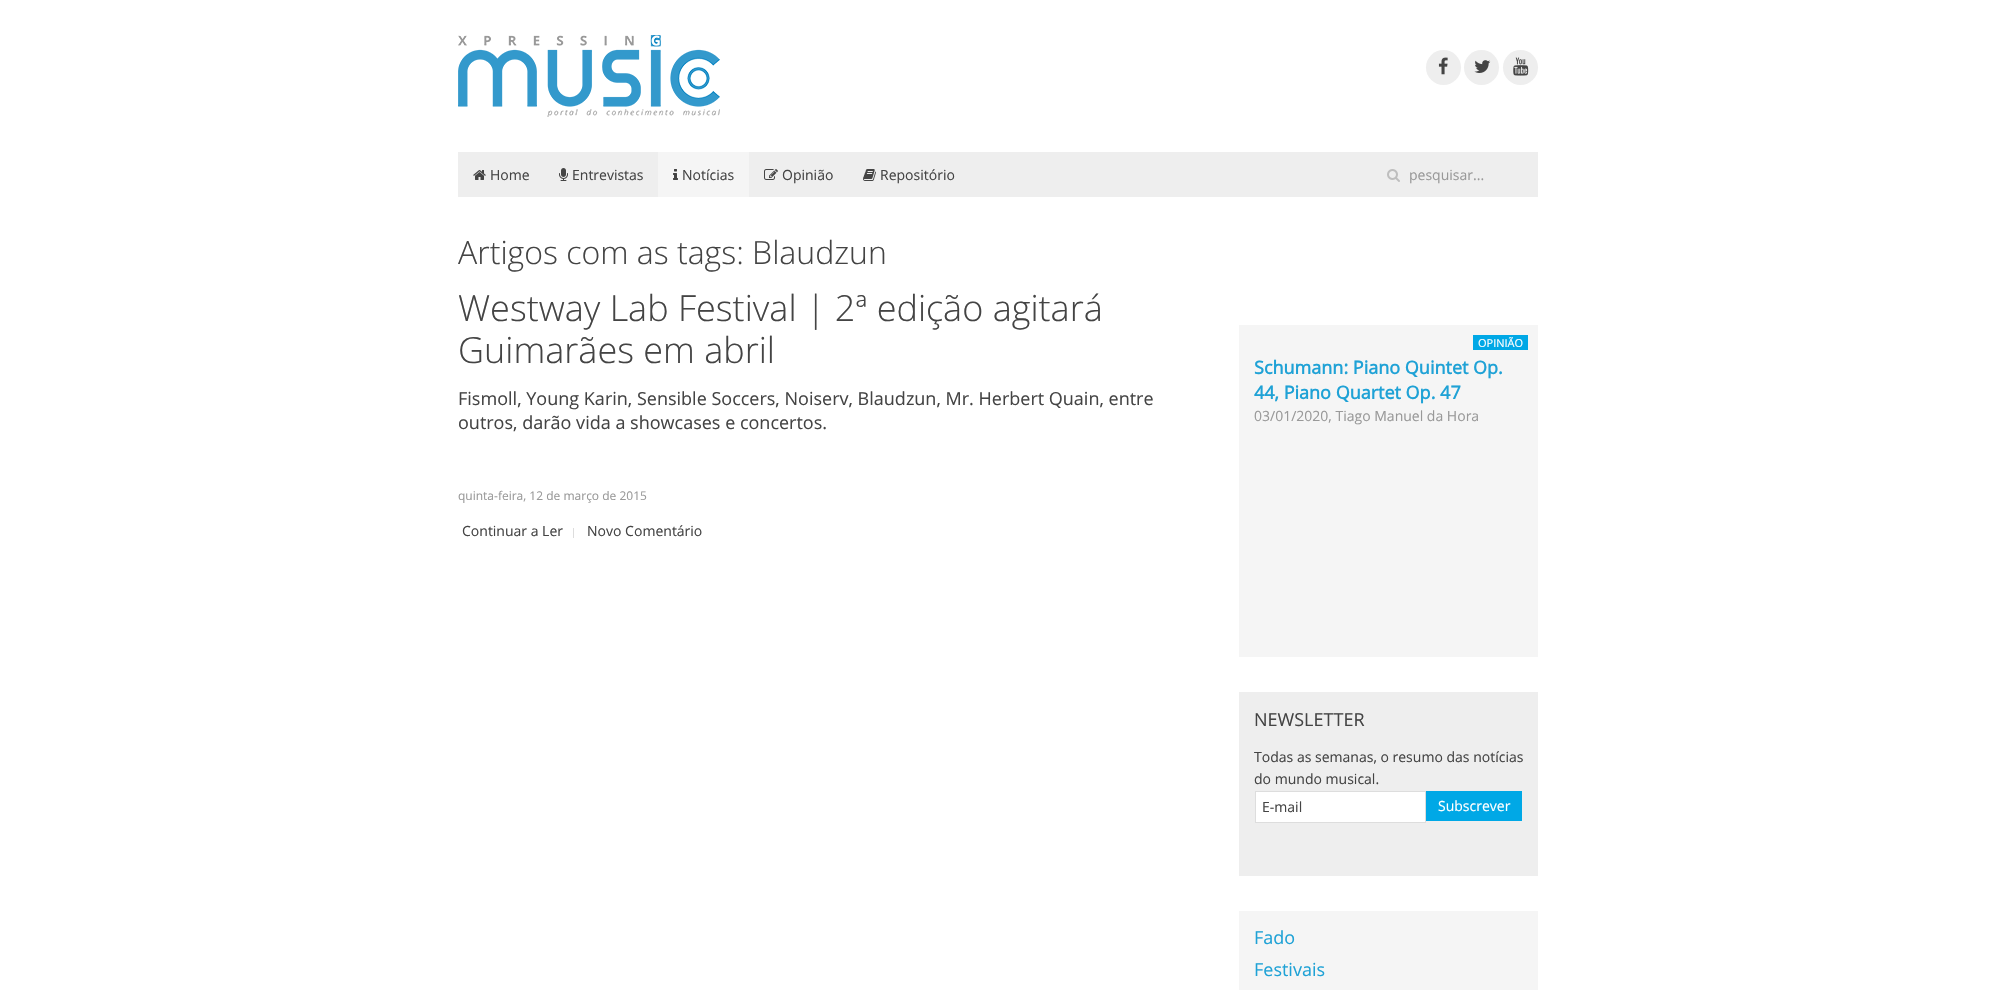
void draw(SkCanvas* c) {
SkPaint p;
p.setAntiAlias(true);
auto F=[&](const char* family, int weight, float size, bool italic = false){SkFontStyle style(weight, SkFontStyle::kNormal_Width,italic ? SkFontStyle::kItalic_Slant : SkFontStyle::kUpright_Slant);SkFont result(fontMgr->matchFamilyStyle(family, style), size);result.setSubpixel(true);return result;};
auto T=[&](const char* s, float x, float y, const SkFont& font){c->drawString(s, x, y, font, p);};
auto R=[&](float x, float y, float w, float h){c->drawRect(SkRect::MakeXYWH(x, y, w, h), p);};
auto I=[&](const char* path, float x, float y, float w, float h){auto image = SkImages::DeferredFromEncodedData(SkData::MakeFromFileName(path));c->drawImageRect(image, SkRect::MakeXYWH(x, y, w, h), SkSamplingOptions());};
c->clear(0xffffffff);
I("1.png",458,35,262,82);
p.setColor(0xffeeeeee);
c->drawCircle(1443.5,67.5,17.5,p);
I("2.png",1438,57,10,18);
c->drawCircle(1481.5,67.5,17.5,p);
I("3.png",1474,60,17,13);
c->drawCircle(1520.5,67.5,17.5,p);
I("4.png",1513,57,16,19);
R(458,152,1080,45);
I("5.png",473,170,13,10);
auto f1 = F("Open Sans",400,14);
p.setColor(0xff444444);
T("Home",490,180,f1);
I("6.png",559,168,9,13);
T("Entrevistas",572,180,f1);
p.setColor(0xfff5f5f5);
R(658,152,91,45);
I("7.png",673,169,5,11);
p.setColor(0xff444444);
T("Notícias",682,180,f1);
I("8.png",764,169,14,11);
T("Opinião",782,180,f1);
I("9.png",863,169,13,12);
T("Repositório",880,180,f1);
I("10.png",1387,169,13,13);
p.setColor(0xff999999);
T("pesquisar...",1409,180,f1);
auto f2 = F("Open Sans",300,32);
p.setColor(0xff444444);
T("Artigos com as tags: Blaudzun",458,264,f2);
auto f3 = F("Open Sans",300,36);
T("Westway Lab Festival | 2ª edição agitará",458,321,f3);
T("Guimarães em abril",458,363,f3);
auto f4 = F("Open Sans",400,18);
T("Fismoll, Young Karin, Sensible Soccers, Noiserv, Blaudzun, Mr. Herbert Quain, entre",458,405,f4);
T("outros, darão vida a showcases e concertos.",458,429,f4);
auto f5 = F("Open Sans",400,12);
p.setColor(0xff999999);
T("quinta-feira, 12 de março de 2015",458,500,f5);
p.setColor(0xff444444);
T("Continuar a Ler",462,536,f1);
p.setColor(0xffdddddd);
R(573,528,1,10);
p.setColor(0xff444444);
T("Novo Comentário",587,536,f1);
p.setColor(0xfff5f5f5);
R(1239,325,299,332);
p.setColor(0xff00a8e6);
R(1473,335,55,15);
auto f6 = F("Open Sans",400,11);
p.setColor(0xffffffff);
T("OPINIÃO",1478,347,f6);
auto f7 = F("Open Sans",700,18);
p.setColor(0xff1fa2d6);
T("Schumann: Piano Quintet Op.",1254,374,f7);
T("44, Piano Quartet Op. 47",1254,399,f7);
p.setColor(0xff999999);
T("03/01/2020, Tiago Manuel da Hora",1254,421,f1);
p.setColor(0xffeeeeee);
R(1239,692,299,184);
p.setColor(0xff444444);
T("NEWSLETTER",1254,726,f4);
T("Todas as semanas, o resumo das notícias",1254,762,f1);
T("do mundo musical.",1254,784,f1);
p.setColor(0xffffffff);
c->drawRect(SkRect::MakeXYWH(1255.5,791.5,170,31),p);
p.setStroke(true);
p.setStrokeWidth(1);
p.setColor(0xffdddddd);
c->drawRect(SkRect::MakeXYWH(1255.5,791.5,170,31),p);
p.setStroke(false);
p.setColor(0xff444444);
T("E-mail",1262,812,f1);
p.setColor(0xff00a8e6);
R(1426,791,96,30);
p.setColor(0xffffffff);
T("Subscrever",1438,811,f1);
p.setColor(0xfff5f5f5);
R(1239,911,299,79);
p.setColor(0xff1fa2d6);
T("Fado",1254,944,f4);
T("Festivais",1254,976,f4);
}
